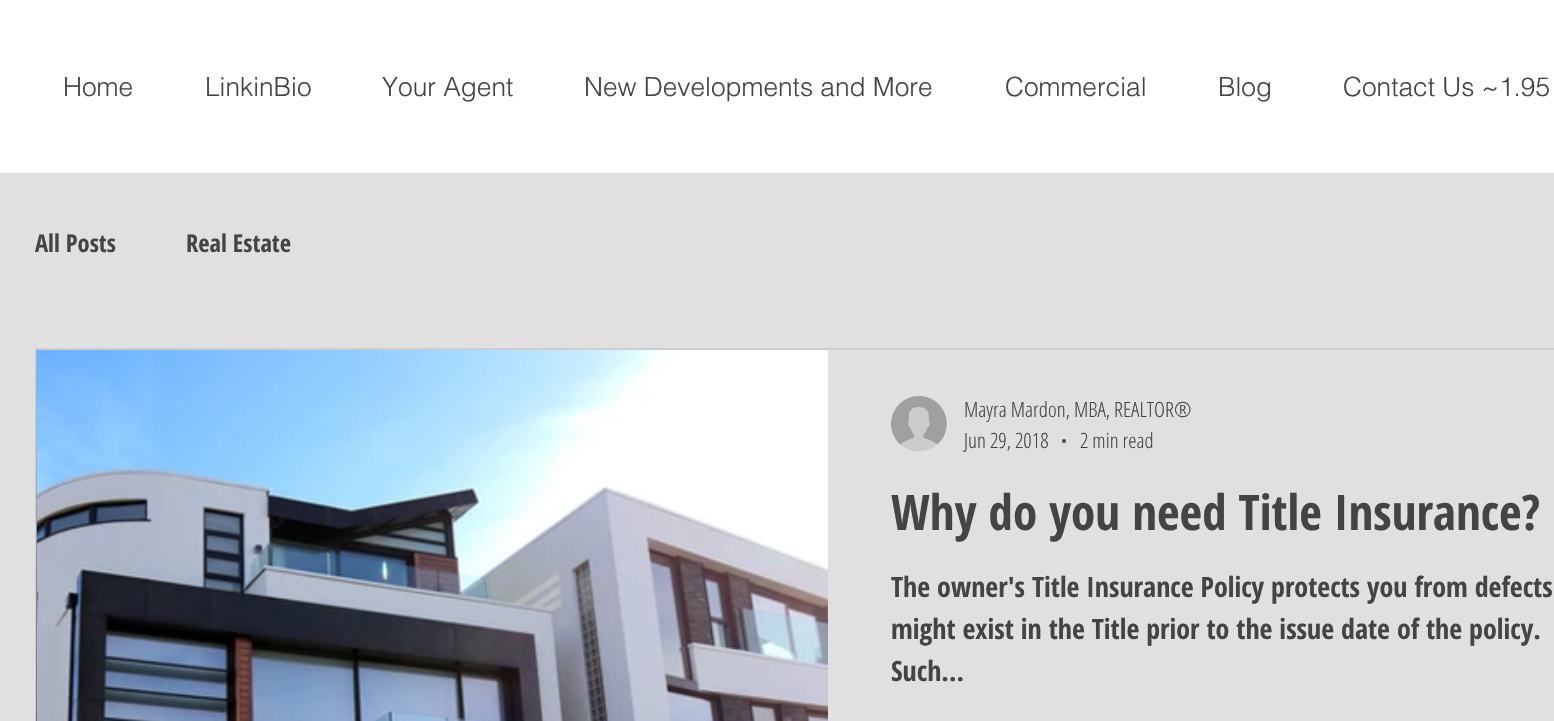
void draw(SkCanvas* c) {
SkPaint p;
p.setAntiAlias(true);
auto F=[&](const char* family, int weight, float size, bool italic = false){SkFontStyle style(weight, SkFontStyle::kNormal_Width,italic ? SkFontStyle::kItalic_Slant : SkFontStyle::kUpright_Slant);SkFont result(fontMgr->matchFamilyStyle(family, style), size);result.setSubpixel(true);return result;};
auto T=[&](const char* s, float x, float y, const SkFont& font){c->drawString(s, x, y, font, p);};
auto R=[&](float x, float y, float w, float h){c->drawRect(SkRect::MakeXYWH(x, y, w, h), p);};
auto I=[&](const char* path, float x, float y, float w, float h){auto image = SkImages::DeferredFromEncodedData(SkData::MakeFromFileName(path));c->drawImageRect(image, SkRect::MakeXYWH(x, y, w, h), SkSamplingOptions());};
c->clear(0xffffffff);
auto f1 = F("helvetica",300,26.25);
p.setColor(0xff444444);
T("Home",63,96,f1);
T("LinkinBio",205,96,f1);
T("Your Agent",382,96,f1);
T("New Developments and More",584,96,f1);
T("Commercial",1005,96,f1);
T("Blog",1218,96,f1);
T("Contact Us ~1.95",1343,96,f1);
p.setColor(0xffe0e0e0);
R(0,173,1554,548);
auto f2 = F("Open Sans Condensed",700,24.5);
p.setColor(0xff444444);
T("All Posts",35,252,f2);
T("Real Estate",186,252,f2);
p.setStroke(true);
p.setStrokeWidth(2);
p.setColor(0xffcecece);
c->drawRect(SkRect::MakeXYWH(36,349,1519,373),p);
I("1.png",36,350,1,371);
I("2.png",37,350,791,371);
I("3.png",891,396,56,56);
auto f3 = F("Open Sans Condensed",300,21);
p.setStroke(false);
p.setColor(0xff444444);
T("Mayra Mardon, MBA, REALTOR®",964,417,f3);
T("Jun 29, 2018",964,448,f3);
p.setColor(0xff454545);
c->drawCircle(1064,441,2,p);
p.setColor(0xff444444);
T("2 min read",1080,448,f3);
auto f4 = F("Open Sans Condensed",700,49);
T("Why do you need Title Insurance?",891,530,f4);
auto f5 = F("Open Sans Condensed",700,28);
T("The owner's Title Insurance Policy protects you from defects",891,597,f5);
T("might exist in the Title prior to the issue date of the policy.",891,639,f5);
T("Such...",891,681,f5);
}
